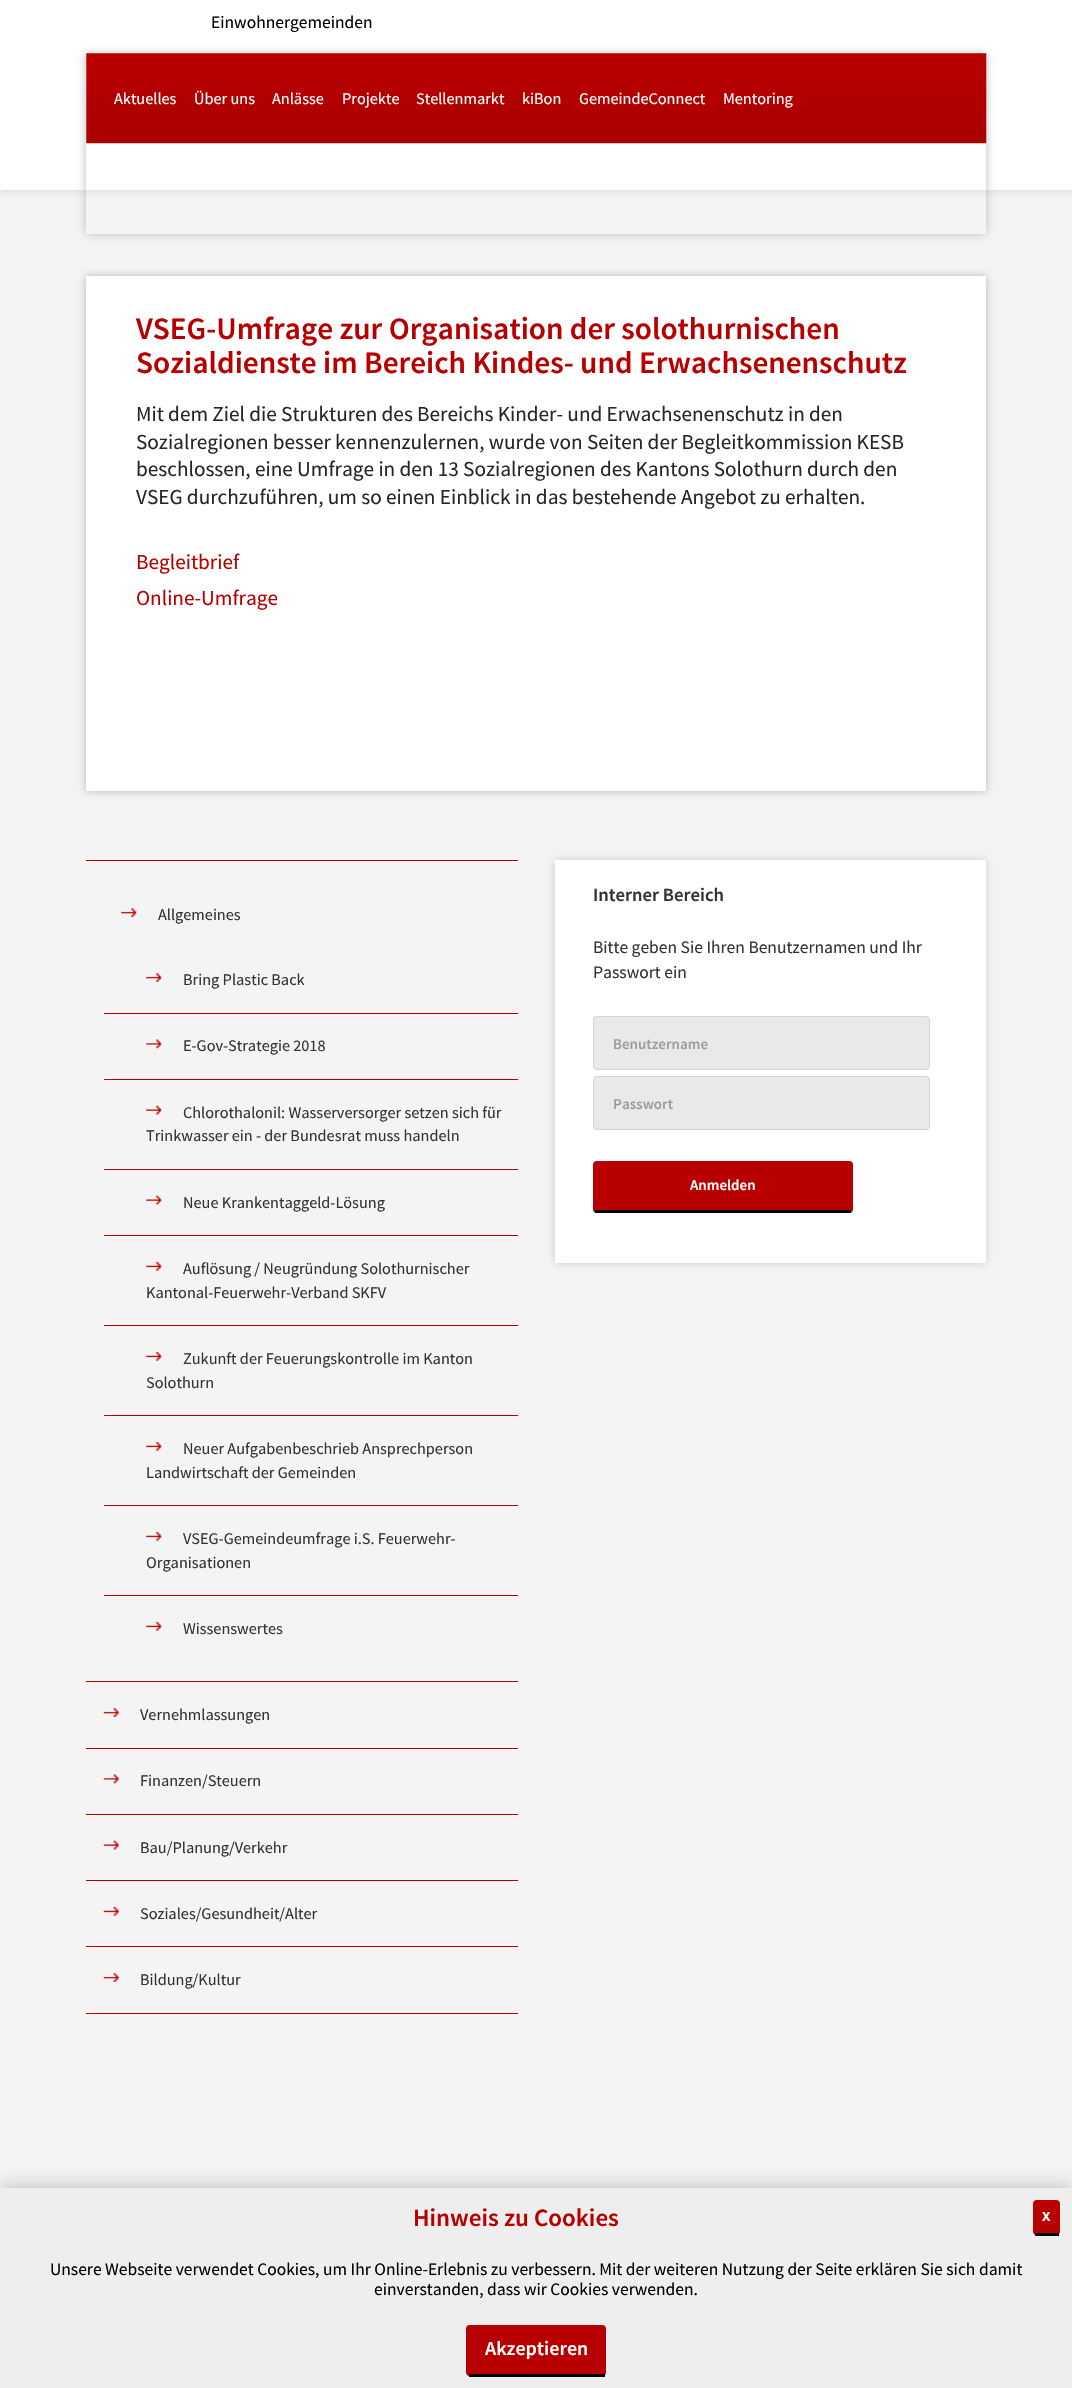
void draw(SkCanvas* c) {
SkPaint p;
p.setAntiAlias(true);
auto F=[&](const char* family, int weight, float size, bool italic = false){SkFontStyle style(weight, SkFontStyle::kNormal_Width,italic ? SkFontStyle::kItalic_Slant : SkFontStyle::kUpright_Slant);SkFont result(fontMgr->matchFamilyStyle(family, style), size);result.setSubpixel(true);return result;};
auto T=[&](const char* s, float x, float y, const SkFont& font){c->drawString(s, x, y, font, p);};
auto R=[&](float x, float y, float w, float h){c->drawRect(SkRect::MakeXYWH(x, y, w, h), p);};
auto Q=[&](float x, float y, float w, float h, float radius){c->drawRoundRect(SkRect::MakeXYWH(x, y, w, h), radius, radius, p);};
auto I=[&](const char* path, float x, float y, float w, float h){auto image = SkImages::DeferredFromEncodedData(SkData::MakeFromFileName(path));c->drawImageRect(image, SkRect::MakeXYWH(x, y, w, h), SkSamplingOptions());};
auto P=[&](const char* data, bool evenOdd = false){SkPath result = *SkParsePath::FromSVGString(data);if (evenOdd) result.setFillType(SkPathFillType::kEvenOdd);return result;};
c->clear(0xfff4f4f4);
p.setColor(0xffd1d1d1);
p.setMaskFilter(SkMaskFilter::MakeBlur(kNormal_SkBlurStyle, 4));
c->drawRect(SkRect::MakeXYWH(0,-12,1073,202),p);
p.setMaskFilter(nullptr);
p.setColor(0xffffffff);
R(0,0,1072,190);
auto f1 = F("Source Sans Pro",400,17.5);
p.setColor(0xff000000);
T("Einwohnergemeinden",211,28,f1);
c->save();
c->clipPath(P("M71 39h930v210h-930zm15 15h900v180h-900z",true),true);
p.setColor(0xffbcbcbc);
p.setMaskFilter(SkMaskFilter::MakeBlur(kNormal_SkBlurStyle, 4.5));
c->drawRect(SkRect::MakeXYWH(86,54,900,180),p);
p.setMaskFilter(nullptr);
c->restore();
I("1.png",86,53,901,91);
auto f2 = F("Source Sans Pro",400,16.25);
p.setColor(0xffffffff);
T("Aktuelles",114,104,f2);
T("Über uns",194,104,f2);
T("Anlässe",272,104,f2);
T("Projekte",342,104,f2);
T("Stellenmarkt",416,104,f2);
T("kiBon",522,104,f2);
T("GemeindeConnect",579,104,f2);
T("Mentoring",723,104,f2);
p.setColor(0xffb4b4b4);
p.setMaskFilter(SkMaskFilter::MakeBlur(kNormal_SkBlurStyle, 4));
c->drawRect(SkRect::MakeXYWH(86,276,900,515),p);
p.setMaskFilter(nullptr);
p.setColor(0xffffffff);
R(86,276,900,515);
auto f3 = F("Source Sans Pro",600,31.25);
p.setColor(0xffb90000);
T("VSEG-Umfrage zur Organisation der solothurnischen",136,339,f3);
T("Sozialdienste im Bereich Kindes- und Erwachsenenschutz",136,373,f3);
auto f4 = F("Source Sans Pro",400,21.25);
p.setColor(0xff262626);
T("Mit dem Ziel die Strukturen des Bereichs Kinder- und Erwachsenenschutz in den",136,421,f4);
T("Sozialregionen besser kennenzulernen, wurde von Seiten der Begleitkommission KESB",136,449,f4);
T("beschlossen, eine Umfrage in den 13 Sozialregionen des Kantons Solothurn durch den",136,476,f4);
T("VSEG durchzuführen, um so einen Einblick in das bestehende Angebot zu erhalten.",136,504,f4);
p.setColor(0xffb90000);
T("Begleitbrief",136,569,f4);
T("Online-Umfrage",136,605,f4);
p.setColor(0xffb00000);
R(86,860,432,1);
R(86,1681,432,1);
I("2.png",121,908,16,9);
p.setColor(0xff333333);
T("Allgemeines",158,920,f2);
p.setColor(0xffb70000);
R(104,1013,414,1);
I("3.png",146,973,16,9);
p.setColor(0xff333333);
T("Bring Plastic Back",183,985,f2);
p.setColor(0xffb70000);
R(104,1079,414,1);
I("4.png",146,1039,16,10);
p.setColor(0xff333333);
T("E-Gov-Strategie 2018",183,1051,f2);
p.setColor(0xffb70000);
R(104,1169,414,1);
I("5.png",146,1105,16,10);
p.setColor(0xff333333);
T("Chlorothalonil: Wasserversorger setzen sich für",183,1118,f2);
T("Trinkwasser ein - der Bundesrat muss handeln",146,1141,f2);
p.setColor(0xffb70000);
R(104,1235,414,1);
I("5.png",146,1195,16,10);
p.setColor(0xff333333);
T("Neue Krankentaggeld-Lösung",183,1208,f2);
p.setColor(0xffb70000);
R(104,1325,414,1);
I("6.png",146,1262,16,9);
p.setColor(0xff333333);
T("Auflösung / Neugründung Solothurnischer",183,1274,f2);
T("Kantonal-Feuerwehr-Verband SKFV",146,1298,f2);
p.setColor(0xffb70000);
R(104,1415,414,1);
I("6.png",146,1352,16,9);
p.setColor(0xff333333);
T("Zukunft der Feuerungskontrolle im Kanton",183,1364,f2);
T("Solothurn",146,1388,f2);
p.setColor(0xffb70000);
R(104,1505,414,1);
I("6.png",146,1442,16,9);
p.setColor(0xff333333);
T("Neuer Aufgabenbeschrieb Ansprechperson",183,1454,f2);
T("Landwirtschaft der Gemeinden",146,1478,f2);
p.setColor(0xffb70000);
R(104,1595,414,1);
I("6.png",146,1532,16,9);
p.setColor(0xff333333);
T("VSEG-Gemeindeumfrage i.S. Feuerwehr-",183,1544,f2);
T("Organisationen",146,1568,f2);
I("6.png",146,1622,16,9);
T("Wissenswertes",183,1634,f2);
p.setColor(0xffb00000);
R(86,1748,432,1);
I("7.png",103,1708,16,9);
p.setColor(0xff333333);
T("Vernehmlassungen",140,1720,f2);
p.setColor(0xffb00000);
R(86,1814,432,1);
I("8.png",103,1774,16,10);
p.setColor(0xff333333);
T("Finanzen/Steuern",140,1786,f2);
p.setColor(0xffb00000);
R(86,1880,432,1);
I("9.png",103,1840,16,10);
p.setColor(0xff333333);
T("Bau/Planung/Verkehr",140,1853,f2);
p.setColor(0xffb00000);
R(86,1946,432,1);
I("10.png",103,1907,16,9);
p.setColor(0xff333333);
T("Soziales/Gesundheit/Alter",140,1919,f2);
p.setColor(0xffb00000);
R(86,2013,432,1);
I("7.png",103,1973,16,9);
p.setColor(0xff333333);
T("Bildung/Kultur",140,1985,f2);
p.setColor(0xffcccccc);
p.setMaskFilter(SkMaskFilter::MakeBlur(kNormal_SkBlurStyle, 4));
c->drawRect(SkRect::MakeXYWH(555,860,431,403),p);
p.setMaskFilter(nullptr);
p.setColor(0xffffffff);
R(555,860,431,403);
auto f5 = F("Source Sans Pro",600,18.75);
p.setColor(0xff333333);
T("Interner Bereich",593,901,f5);
T("Bitte geben Sie Ihren Benutzernamen und Ihr",593,953,f1);
T("Passwort ein",593,978,f1);
p.setColor(0xffe9e9e9);
c->drawRoundRect(SkRect::MakeXYWH(593.5,1016.5,336,53),3.5,3.5,p);
p.setStroke(true);
p.setStrokeWidth(1);
p.setColor(0xffd4d4d4);
c->drawRoundRect(SkRect::MakeXYWH(593.5,1016.5,336,53),3.5,3.5,p);
auto f6 = F("Source Sans Pro",600,15);
p.setStroke(false);
p.setColor(0xff9d9d9d);
T("Benutzername",613,1049,f6);
p.setColor(0xffe9e9e9);
c->drawRoundRect(SkRect::MakeXYWH(593.5,1076.5,336,53),3.5,3.5,p);
p.setStroke(true);
p.setColor(0xffd4d4d4);
c->drawRoundRect(SkRect::MakeXYWH(593.5,1076.5,336,53),3.5,3.5,p);
p.setStroke(false);
p.setColor(0xff9d9d9d);
T("Passwort",613,1109,f6);
p.setColor(0xffb90000);
Q(593,1161,260,52,4);
p.setColor(0xff000000);
R(595,1210,256,3);
p.setColor(0xffffffff);
T("Anmelden",690,1190,f6);
p.setColor(0x40000000);
p.setMaskFilter(SkMaskFilter::MakeBlur(kNormal_SkBlurStyle, 9.5));
c->drawRect(SkRect::MakeXYWH(0,2188,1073,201),p);
p.setMaskFilter(nullptr);
p.setColor(0xffeeeeee);
R(0,2188,1072,200);
auto f7 = F("Source Sans Pro",600,25);
p.setColor(0xffb90000);
T("Hinweis zu Cookies",413,2226,f7);
Q(1033,2200,27,35,4);
p.setColor(0xff000000);
R(1035,2233,24,3);
auto f8 = F("Source Sans Pro",700,17.5);
p.setColor(0xffffffff);
T("x",1042,2221,f8);
p.setColor(0xff000000);
T("Unsere Webseite verwendet Cookies, um Ihr Online-Erlebnis zu verbessern. Mit der weiteren Nutzung der Seite erklären Sie sich damit",50,2275,f1);
T("einverstanden, dass wir Cookies verwenden.",374,2295,f1);
p.setColor(0xffb90000);
Q(466,2325,140,51,4);
p.setColor(0xff000000);
R(469,2374,136,3);
auto f9 = F("Source Sans Pro",600,20);
p.setColor(0xffffffff);
T("Akzeptieren",485,2355,f9);
}
